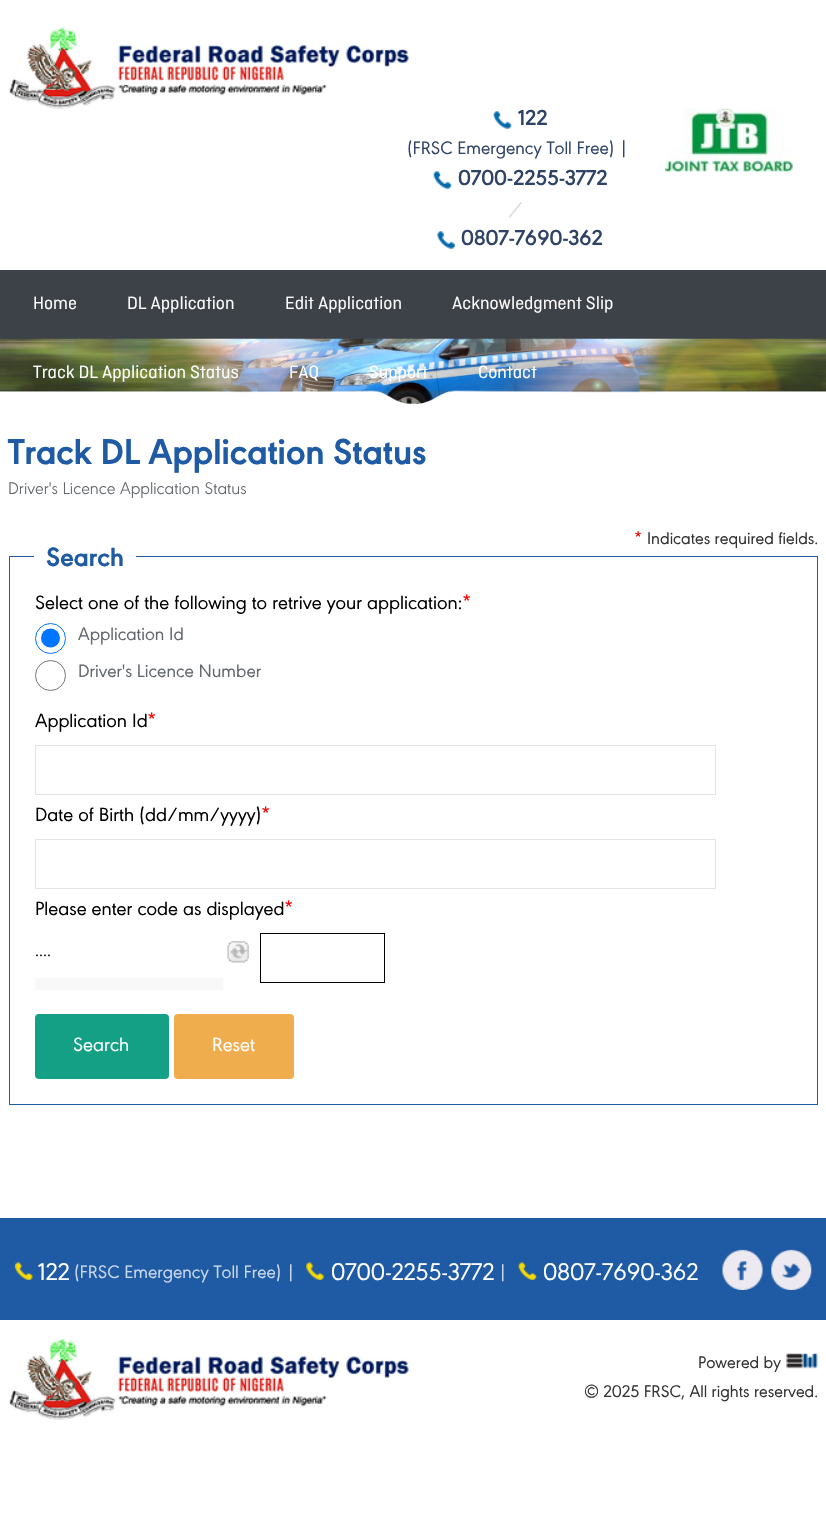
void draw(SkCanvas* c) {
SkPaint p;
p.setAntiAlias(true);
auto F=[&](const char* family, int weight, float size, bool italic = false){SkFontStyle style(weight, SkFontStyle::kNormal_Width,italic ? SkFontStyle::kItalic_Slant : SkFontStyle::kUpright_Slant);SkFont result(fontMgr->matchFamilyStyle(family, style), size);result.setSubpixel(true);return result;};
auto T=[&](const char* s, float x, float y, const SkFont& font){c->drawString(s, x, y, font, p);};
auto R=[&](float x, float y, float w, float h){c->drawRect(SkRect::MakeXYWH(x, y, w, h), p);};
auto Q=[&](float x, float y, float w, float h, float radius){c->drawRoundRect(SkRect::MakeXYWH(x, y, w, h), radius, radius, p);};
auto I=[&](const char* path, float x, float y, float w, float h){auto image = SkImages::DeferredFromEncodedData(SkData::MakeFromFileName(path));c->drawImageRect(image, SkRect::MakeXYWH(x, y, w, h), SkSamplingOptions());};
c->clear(0xffffffff);
I("1.png",8,27,401,82);
I("2.png",493,111,19,18);
auto f1 = F("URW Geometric",600,22.5);
p.setColor(0xff2f4366);
T("122",518,125,f1);
auto f2 = F("URW Geometric",400,18.75);
T("(FRSC Emergency Toll Free) |",407,154,f2);
I("2.png",433,171,19,18);
T("0700-2255-3772",458,185,f1);
I("3.png",508,202,14,16);
I("4.png",437,231,18,18);
T("0807-7690-362",461,245,f1);
I("5.png",665,108,128,64);
p.setColor(0xff3d4249);
R(0,270,826,69);
auto f3 = F("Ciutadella",400,18.75);
p.setColor(0xffffffff);
T("Home",33,309,f3);
T("DL Application",127,309,f3);
T("Edit Application",285,309,f3);
T("Acknowledgment Slip",452,309,f3);
I("6.png",0,338,826,66);
T("Track DL Application Status",33,378,f3);
T("FAQ",289,378,f3);
T("Support",369,378,f3);
T("Contact",478,378,f3);
auto f4 = F("URW Geometric",700,37.5);
p.setColor(0xff1f5aa5);
T("Track DL Application Status",8,464,f4);
auto f5 = F("URW Geometric",300,17.5);
p.setColor(0xff62676d);
T("Driver's Licence Application Status",8,494,f5);
auto f6 = F("URW Geometric",400,17.5);
p.setColor(0xffff0000);
T("*",634,544,f6);
p.setColor(0xff333333);
T("Indicates required fields.",647,544,f6);
p.setStroke(true);
p.setStrokeWidth(1);
p.setColor(0xff1f5aa5);
c->drawRect(SkRect::MakeXYWH(9.5,556.5,808,548),p);
p.setStroke(false);
p.setColor(0xffffffff);
R(34,556,102,1);
auto f7 = F("URW Geometric",700,27.5);
p.setColor(0xff1f5aa5);
T("Search",46,566,f7);
auto f8 = F("URW Geometric",400,20);
p.setColor(0xff000000);
T("Select one of the following to retrive your application:",35,609,f8);
p.setColor(0xffff0000);
T("*",462,609,f8);
p.setStroke(true);
p.setColor(0xff0075ff);
c->drawCircle(50.5,638.5,15,p);
p.setStroke(false);
c->drawCircle(50.5,638,9.5,p);
p.setColor(0xff62676d);
T("Application Id",78,640,f2);
p.setStroke(true);
p.setColor(0xff767676);
c->drawCircle(50.5,675.5,15,p);
p.setStroke(false);
p.setColor(0xff62676d);
T("Driver's Licence Number",78,677,f2);
p.setColor(0xff000000);
T("Application Id",35,727,f8);
p.setColor(0xffff0000);
T("*",147,727,f8);
p.setStroke(true);
p.setColor(0xffe1e3e5);
c->drawRect(SkRect::MakeXYWH(35.5,745.5,680,49),p);
p.setStroke(false);
p.setColor(0xff000000);
T("Date of Birth (dd/mm/yyyy)",35,821,f8);
p.setColor(0xffff0000);
T("*",261,821,f8);
p.setStroke(true);
p.setColor(0xffe1e3e5);
c->drawRect(SkRect::MakeXYWH(35.5,839.5,680,49),p);
p.setStroke(false);
p.setColor(0xff000000);
T("Please enter code as displayed",35,915,f8);
p.setColor(0xffff0000);
T("*",284,915,f8);
p.setColor(0xff000000);
T("....",35,956,f6);
p.setColor(0xfff8f8f8);
R(35,978,188,12);
I("7.png",227,941,22,22);
p.setStroke(true);
p.setColor(0xff000000);
c->drawRect(SkRect::MakeXYWH(260.5,933.5,124,49),p);
p.setStroke(false);
p.setColor(0xff13a085);
Q(35,1014,134,65,4);
p.setColor(0xffffffff);
T("Search",73,1051,f8);
p.setColor(0xfff0ad4e);
Q(174,1014,120,65,4);
p.setColor(0xffffffff);
T("Reset",212,1051,f8);
p.setColor(0xff1f5aa5);
R(0,1218,826,102);
I("8.png",15,1262,18,18);
auto f9 = F("URW Geometric",400,25);
p.setColor(0xffffffff);
T("122",38,1280,f9);
p.setColor(0xffcbd9ea);
T("(FRSC Emergency Toll Free) |",74,1278,f2);
I("9.png",306,1262,18,18);
p.setColor(0xffffffff);
T("0700-2255-3772",331,1280,f9);
p.setColor(0xffcbd9ea);
T("|",498,1278,f2);
I("10.png",518,1262,19,18);
p.setColor(0xffffffff);
T("0807-7690-362",543,1280,f9);
I("11.png",722,1249,41,41);
I("12.png",771,1249,41,41);
I("13.png",8,1338,401,82);
p.setColor(0xff333333);
T("Powered by",698,1368,f6);
I("14.png",786,1353,32,16);
T("© 2025 FRSC, All rights reserved.",584,1397,f6);
}
